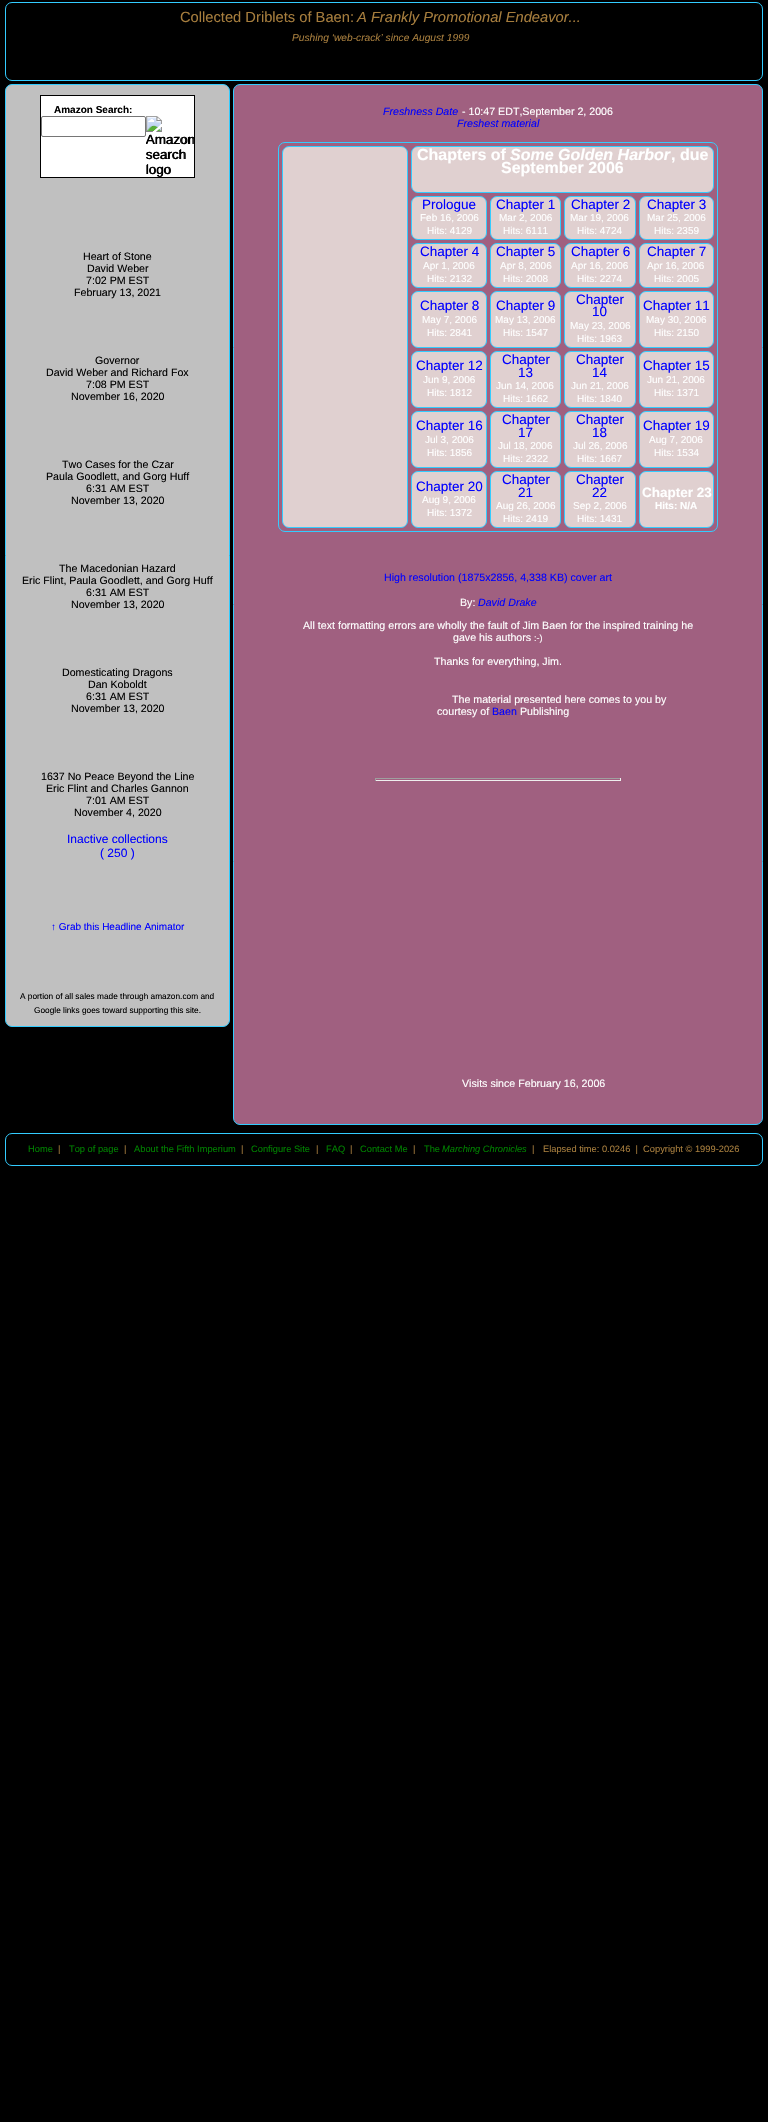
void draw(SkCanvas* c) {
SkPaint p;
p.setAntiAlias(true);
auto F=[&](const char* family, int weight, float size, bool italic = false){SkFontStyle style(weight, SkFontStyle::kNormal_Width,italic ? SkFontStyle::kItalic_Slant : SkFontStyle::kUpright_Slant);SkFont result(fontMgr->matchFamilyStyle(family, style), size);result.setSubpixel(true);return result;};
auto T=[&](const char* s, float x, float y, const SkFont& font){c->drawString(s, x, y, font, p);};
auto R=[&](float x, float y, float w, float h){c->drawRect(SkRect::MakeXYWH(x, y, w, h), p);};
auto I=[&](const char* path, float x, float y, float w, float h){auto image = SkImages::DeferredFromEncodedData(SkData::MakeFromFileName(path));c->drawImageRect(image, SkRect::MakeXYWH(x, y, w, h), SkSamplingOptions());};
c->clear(0xff000000);
p.setStroke(true);
p.setStrokeWidth(1);
p.setColor(0xff33ccff);
c->drawRoundRect(SkRect::MakeXYWH(5.5,2.5,757,78),6.5,6.5,p);
auto f1 = F("Liberation Sans",400,14.7);
p.setStroke(false);
p.setColor(0xffa67d3d);
T("Collected Driblets of Baen:",180,22,f1);
auto f2 = F("Liberation Sans",400,14.7,true);
T("A Frankly Promotional Endeavor...",357,22,f2);
auto f3 = F("Liberation Sans",400,10.2,true);
T("Pushing ‘web-crack’ since August 1999",292,41,f3);
p.setColor(0xffc0c0c0);
c->drawRoundRect(SkRect::MakeXYWH(5.5,84.5,224,942),6.5,6.5,p);
p.setStroke(true);
p.setColor(0xff33ccff);
c->drawRoundRect(SkRect::MakeXYWH(5.5,84.5,224,942),6.5,6.5,p);
p.setStroke(false);
p.setColor(0xffffffff);
c->drawRect(SkRect::MakeXYWH(40.5,95.5,154,82),p);
p.setStroke(true);
p.setColor(0xff000000);
c->drawRect(SkRect::MakeXYWH(40.5,95.5,154,82),p);
auto f4 = F("Liberation Sans",700,10);
p.setStroke(false);
T("Amazon Search:",54,113,f4);
p.setStroke(true);
p.setColor(0xff767676);
c->drawRoundRect(SkRect::MakeXYWH(41.5,116.5,104,20),1.5,1.5,p);
I("1.png",146,116,48,61);
auto f5 = F("Liberation Sans",400,13.5);
p.setStroke(false);
p.setColor(0xff000000);
T("Amazon",146,144,f5);
T("search",146,159,f5);
T("logo",146,174,f5);
auto f6 = F("Liberation Sans",400,10.65);
T("Heart of Stone",83,260,f6);
T("David Weber",87,272,f6);
T("7:02 PM EST",86,284,f6);
T("February 13, 2021",74,296,f6);
T("Governor",95,364,f6);
T("David Weber and Richard Fox",46,376,f6);
T("7:08 PM EST",86,388,f6);
T("November 16, 2020",71,400,f6);
T("Two Cases for the Czar",62,468,f6);
T("Paula Goodlett, and Gorg Huff",46,480,f6);
T("6:31 AM EST",86,492,f6);
T("November 13, 2020",71,504,f6);
T("The Macedonian Hazard",59,572,f6);
T("Eric Flint, Paula Goodlett, and Gorg Huff",22,584,f6);
T("6:31 AM EST",86,596,f6);
T("November 13, 2020",71,608,f6);
T("Domesticating Dragons",62,676,f6);
T("Dan Koboldt",88,688,f6);
T("6:31 AM EST",86,700,f6);
T("November 13, 2020",71,712,f6);
T("1637 No Peace Beyond the Line",41,780,f6);
T("Eric Flint and Charles Gannon",46,792,f6);
T("7:01 AM EST",86,804,f6);
T("November 4, 2020",74,816,f6);
auto f7 = F("Liberation Sans",400,12);
p.setColor(0xff0000ff);
T("Inactive collections",67,843,f7);
T("( 250 )",100,857,f7);
auto f8 = F("Liberation Sans",400,10);
T("↑ Grab this Headline Animator",51,930,f8);
auto f9 = F("Liberation Sans",400,8.3);
p.setColor(0xff000000);
T("A portion of all sales made through amazon.com and",20,999,f9);
T("Google links goes toward supporting this site.",34,1013,f9);
p.setColor(0xffa06080);
c->drawRoundRect(SkRect::MakeXYWH(233.5,84.5,529,1040),6.5,6.5,p);
p.setStroke(true);
p.setColor(0xff33ccff);
c->drawRoundRect(SkRect::MakeXYWH(233.5,84.5,529,1040),6.5,6.5,p);
auto f10 = F("Liberation Sans",400,10.65,true);
p.setStroke(false);
p.setColor(0xff0000ff);
T("Freshness Date",383,115,f10);
p.setColor(0xffffffff);
T("- 10:47 EDT,September 2, 2006",462,115,f6);
p.setColor(0xff0000ff);
T("Freshest material",457,127,f10);
p.setStroke(true);
p.setColor(0xff33ccff);
c->drawRoundRect(SkRect::MakeXYWH(278.5,142.5,439,389),6.5,6.5,p);
p.setStroke(false);
p.setColor(0xffe0d0d0);
c->drawRoundRect(SkRect::MakeXYWH(282.5,146.5,125,381),6.5,6.5,p);
p.setStroke(true);
p.setColor(0xff33ccff);
c->drawRoundRect(SkRect::MakeXYWH(282.5,146.5,125,381),6.5,6.5,p);
p.setStroke(false);
p.setColor(0xffe0d0d0);
c->drawRoundRect(SkRect::MakeXYWH(411.5,146.5,302,46),6.5,6.5,p);
p.setStroke(true);
p.setColor(0xff33ccff);
c->drawRoundRect(SkRect::MakeXYWH(411.5,146.5,302,46),6.5,6.5,p);
auto f11 = F("Liberation Sans",700,16);
p.setStroke(false);
p.setColor(0xffffffff);
T("Chapters of",417,160,f11);
auto f12 = F("Liberation Sans",700,16,true);
T("Some Golden Harbor",510,160,f12);
T(", due",671,160,f11);
T("September 2006",501,173,f11);
p.setColor(0xffe0d0d0);
c->drawRoundRect(SkRect::MakeXYWH(411.5,196.5,75,43),6.5,6.5,p);
p.setStroke(true);
p.setColor(0xff33ccff);
c->drawRoundRect(SkRect::MakeXYWH(411.5,196.5,75,43),6.5,6.5,p);
p.setStroke(false);
p.setColor(0xff0000ff);
T("Prologue",422,209,f5);
p.setColor(0xffffffff);
T("Feb 16, 2006",420,221,f8);
T("Hits: 4129",427,234,f8);
p.setColor(0xffe0d0d0);
c->drawRoundRect(SkRect::MakeXYWH(490.5,196.5,70,43),6.5,6.5,p);
p.setStroke(true);
p.setColor(0xff33ccff);
c->drawRoundRect(SkRect::MakeXYWH(490.5,196.5,70,43),6.5,6.5,p);
p.setStroke(false);
p.setColor(0xff0000ff);
T("Chapter 1",496,209,f5);
p.setColor(0xffffffff);
T("Mar 2, 2006",499,221,f8);
T("Hits: 6111",503,234,f8);
p.setColor(0xffe0d0d0);
c->drawRoundRect(SkRect::MakeXYWH(564.5,196.5,71,43),6.5,6.5,p);
p.setStroke(true);
p.setColor(0xff33ccff);
c->drawRoundRect(SkRect::MakeXYWH(564.5,196.5,71,43),6.5,6.5,p);
p.setStroke(false);
p.setColor(0xff0000ff);
T("Chapter 2",571,209,f5);
p.setColor(0xffffffff);
T("Mar 19, 2006",570,221,f8);
T("Hits: 4724",577,234,f8);
p.setColor(0xffe0d0d0);
c->drawRoundRect(SkRect::MakeXYWH(639.5,196.5,74,43),6.5,6.5,p);
p.setStroke(true);
p.setColor(0xff33ccff);
c->drawRoundRect(SkRect::MakeXYWH(639.5,196.5,74,43),6.5,6.5,p);
p.setStroke(false);
p.setColor(0xff0000ff);
T("Chapter 3",647,209,f5);
p.setColor(0xffffffff);
T("Mar 25, 2006",647,221,f8);
T("Hits: 2359",654,234,f8);
p.setColor(0xffe0d0d0);
c->drawRoundRect(SkRect::MakeXYWH(411.5,243.5,75,44),6.5,6.5,p);
p.setStroke(true);
p.setColor(0xff33ccff);
c->drawRoundRect(SkRect::MakeXYWH(411.5,243.5,75,44),6.5,6.5,p);
p.setStroke(false);
p.setColor(0xff0000ff);
T("Chapter 4",420,256,f5);
p.setColor(0xffffffff);
T("Apr 1, 2006",423,269,f8);
T("Hits: 2132",427,282,f8);
p.setColor(0xffe0d0d0);
c->drawRoundRect(SkRect::MakeXYWH(490.5,243.5,70,44),6.5,6.5,p);
p.setStroke(true);
p.setColor(0xff33ccff);
c->drawRoundRect(SkRect::MakeXYWH(490.5,243.5,70,44),6.5,6.5,p);
p.setStroke(false);
p.setColor(0xff0000ff);
T("Chapter 5",496,256,f5);
p.setColor(0xffffffff);
T("Apr 8, 2006",500,269,f8);
T("Hits: 2008",503,282,f8);
p.setColor(0xffe0d0d0);
c->drawRoundRect(SkRect::MakeXYWH(564.5,243.5,71,44),6.5,6.5,p);
p.setStroke(true);
p.setColor(0xff33ccff);
c->drawRoundRect(SkRect::MakeXYWH(564.5,243.5,71,44),6.5,6.5,p);
p.setStroke(false);
p.setColor(0xff0000ff);
T("Chapter 6",571,256,f5);
p.setColor(0xffffffff);
T("Apr 16, 2006",571,269,f8);
T("Hits: 2274",577,282,f8);
p.setColor(0xffe0d0d0);
c->drawRoundRect(SkRect::MakeXYWH(639.5,243.5,74,44),6.5,6.5,p);
p.setStroke(true);
p.setColor(0xff33ccff);
c->drawRoundRect(SkRect::MakeXYWH(639.5,243.5,74,44),6.5,6.5,p);
p.setStroke(false);
p.setColor(0xff0000ff);
T("Chapter 7",647,256,f5);
p.setColor(0xffffffff);
T("Apr 16, 2006",647,269,f8);
T("Hits: 2005",654,282,f8);
p.setColor(0xffe0d0d0);
c->drawRoundRect(SkRect::MakeXYWH(411.5,291.5,75,56),6.5,6.5,p);
p.setStroke(true);
p.setColor(0xff33ccff);
c->drawRoundRect(SkRect::MakeXYWH(411.5,291.5,75,56),6.5,6.5,p);
p.setStroke(false);
p.setColor(0xff0000ff);
T("Chapter 8",420,310,f5);
p.setColor(0xffffffff);
T("May 7, 2006",422,323,f8);
T("Hits: 2841",427,336,f8);
p.setColor(0xffe0d0d0);
c->drawRoundRect(SkRect::MakeXYWH(490.5,291.5,70,56),6.5,6.5,p);
p.setStroke(true);
p.setColor(0xff33ccff);
c->drawRoundRect(SkRect::MakeXYWH(490.5,291.5,70,56),6.5,6.5,p);
p.setStroke(false);
p.setColor(0xff0000ff);
T("Chapter 9",496,310,f5);
p.setColor(0xffffffff);
T("May 13, 2006",495,323,f8);
T("Hits: 1547",503,336,f8);
p.setColor(0xffe0d0d0);
c->drawRoundRect(SkRect::MakeXYWH(564.5,291.5,71,56),6.5,6.5,p);
p.setStroke(true);
p.setColor(0xff33ccff);
c->drawRoundRect(SkRect::MakeXYWH(564.5,291.5,71,56),6.5,6.5,p);
p.setStroke(false);
p.setColor(0xff0000ff);
T("Chapter",576,304,f5);
T("10",592,316,f5);
p.setColor(0xffffffff);
T("May 23, 2006",570,329,f8);
T("Hits: 1963",577,342,f8);
p.setColor(0xffe0d0d0);
c->drawRoundRect(SkRect::MakeXYWH(639.5,291.5,74,56),6.5,6.5,p);
p.setStroke(true);
p.setColor(0xff33ccff);
c->drawRoundRect(SkRect::MakeXYWH(639.5,291.5,74,56),6.5,6.5,p);
p.setStroke(false);
p.setColor(0xff0000ff);
T("Chapter 11",643,310,f5);
p.setColor(0xffffffff);
T("May 30, 2006",646,323,f8);
T("Hits: 2150",654,336,f8);
p.setColor(0xffe0d0d0);
c->drawRoundRect(SkRect::MakeXYWH(411.5,351.5,75,56),6.5,6.5,p);
p.setStroke(true);
p.setColor(0xff33ccff);
c->drawRoundRect(SkRect::MakeXYWH(411.5,351.5,75,56),6.5,6.5,p);
p.setStroke(false);
p.setColor(0xff0000ff);
T("Chapter 12",416,370,f5);
p.setColor(0xffffffff);
T("Jun 9, 2006",423,383,f8);
T("Hits: 1812",427,396,f8);
p.setColor(0xffe0d0d0);
c->drawRoundRect(SkRect::MakeXYWH(490.5,351.5,70,56),6.5,6.5,p);
p.setStroke(true);
p.setColor(0xff33ccff);
c->drawRoundRect(SkRect::MakeXYWH(490.5,351.5,70,56),6.5,6.5,p);
p.setStroke(false);
p.setColor(0xff0000ff);
T("Chapter",502,364,f5);
T("13",518,377,f5);
p.setColor(0xffffffff);
T("Jun 14, 2006",496,389,f8);
T("Hits: 1662",503,402,f8);
p.setColor(0xffe0d0d0);
c->drawRoundRect(SkRect::MakeXYWH(564.5,351.5,71,56),6.5,6.5,p);
p.setStroke(true);
p.setColor(0xff33ccff);
c->drawRoundRect(SkRect::MakeXYWH(564.5,351.5,71,56),6.5,6.5,p);
p.setStroke(false);
p.setColor(0xff0000ff);
T("Chapter",576,364,f5);
T("14",592,377,f5);
p.setColor(0xffffffff);
T("Jun 21, 2006",571,389,f8);
T("Hits: 1840",577,402,f8);
p.setColor(0xffe0d0d0);
c->drawRoundRect(SkRect::MakeXYWH(639.5,351.5,74,56),6.5,6.5,p);
p.setStroke(true);
p.setColor(0xff33ccff);
c->drawRoundRect(SkRect::MakeXYWH(639.5,351.5,74,56),6.5,6.5,p);
p.setStroke(false);
p.setColor(0xff0000ff);
T("Chapter 15",643,370,f5);
p.setColor(0xffffffff);
T("Jun 21, 2006",647,383,f8);
T("Hits: 1371",654,396,f8);
p.setColor(0xffe0d0d0);
c->drawRoundRect(SkRect::MakeXYWH(411.5,411.5,75,56),6.5,6.5,p);
p.setStroke(true);
p.setColor(0xff33ccff);
c->drawRoundRect(SkRect::MakeXYWH(411.5,411.5,75,56),6.5,6.5,p);
p.setStroke(false);
p.setColor(0xff0000ff);
T("Chapter 16",416,430,f5);
p.setColor(0xffffffff);
T("Jul 3, 2006",425,443,f8);
T("Hits: 1856",427,456,f8);
p.setColor(0xffe0d0d0);
c->drawRoundRect(SkRect::MakeXYWH(490.5,411.5,70,56),6.5,6.5,p);
p.setStroke(true);
p.setColor(0xff33ccff);
c->drawRoundRect(SkRect::MakeXYWH(490.5,411.5,70,56),6.5,6.5,p);
p.setStroke(false);
p.setColor(0xff0000ff);
T("Chapter",502,424,f5);
T("17",518,437,f5);
p.setColor(0xffffffff);
T("Jul 18, 2006",498,449,f8);
T("Hits: 2322",503,462,f8);
p.setColor(0xffe0d0d0);
c->drawRoundRect(SkRect::MakeXYWH(564.5,411.5,71,56),6.5,6.5,p);
p.setStroke(true);
p.setColor(0xff33ccff);
c->drawRoundRect(SkRect::MakeXYWH(564.5,411.5,71,56),6.5,6.5,p);
p.setStroke(false);
p.setColor(0xff0000ff);
T("Chapter",576,424,f5);
T("18",592,437,f5);
p.setColor(0xffffffff);
T("Jul 26, 2006",573,449,f8);
T("Hits: 1667",577,462,f8);
p.setColor(0xffe0d0d0);
c->drawRoundRect(SkRect::MakeXYWH(639.5,411.5,74,56),6.5,6.5,p);
p.setStroke(true);
p.setColor(0xff33ccff);
c->drawRoundRect(SkRect::MakeXYWH(639.5,411.5,74,56),6.5,6.5,p);
p.setStroke(false);
p.setColor(0xff0000ff);
T("Chapter 19",643,430,f5);
p.setColor(0xffffffff);
T("Aug 7, 2006",649,443,f8);
T("Hits: 1534",654,456,f8);
p.setColor(0xffe0d0d0);
c->drawRoundRect(SkRect::MakeXYWH(411.5,471.5,75,56),6.5,6.5,p);
p.setStroke(true);
p.setColor(0xff33ccff);
c->drawRoundRect(SkRect::MakeXYWH(411.5,471.5,75,56),6.5,6.5,p);
p.setStroke(false);
p.setColor(0xff0000ff);
T("Chapter 20",416,491,f5);
p.setColor(0xffffffff);
T("Aug 9, 2006",422,503,f8);
T("Hits: 1372",427,516,f8);
p.setColor(0xffe0d0d0);
c->drawRoundRect(SkRect::MakeXYWH(490.5,471.5,70,56),6.5,6.5,p);
p.setStroke(true);
p.setColor(0xff33ccff);
c->drawRoundRect(SkRect::MakeXYWH(490.5,471.5,70,56),6.5,6.5,p);
p.setStroke(false);
p.setColor(0xff0000ff);
T("Chapter",502,484,f5);
T("21",518,497,f5);
p.setColor(0xffffffff);
T("Aug 26, 2006",496,509,f8);
T("Hits: 2419",503,522,f8);
p.setColor(0xffe0d0d0);
c->drawRoundRect(SkRect::MakeXYWH(564.5,471.5,71,56),6.5,6.5,p);
p.setStroke(true);
p.setColor(0xff33ccff);
c->drawRoundRect(SkRect::MakeXYWH(564.5,471.5,71,56),6.5,6.5,p);
p.setStroke(false);
p.setColor(0xff0000ff);
T("Chapter",576,484,f5);
T("22",592,497,f5);
p.setColor(0xffffffff);
T("Sep 2, 2006",573,509,f8);
T("Hits: 1431",577,522,f8);
p.setColor(0xffe0d0d0);
c->drawRoundRect(SkRect::MakeXYWH(639.5,471.5,74,56),6.5,6.5,p);
p.setStroke(true);
p.setColor(0xff33ccff);
c->drawRoundRect(SkRect::MakeXYWH(639.5,471.5,74,56),6.5,6.5,p);
auto f13 = F("Liberation Sans",700,13.5);
p.setStroke(false);
p.setColor(0xffffffff);
T("Chapter 23",642,497,f13);
T("Hits: N/A",655,509,f4);
p.setColor(0xff0000ff);
T("High resolution (1875x2856, 4,338 KB) cover art",384,581,f6);
p.setColor(0xffffffff);
T("By:",460,606,f6);
p.setColor(0xff0000ff);
T("David Drake",478,606,f10);
p.setColor(0xffffffff);
T("All text formatting errors are wholly the fault of Jim Baen for the inspired training he",303,629,f6);
T("gave his authors",453,641,f6);
auto f14 = F("Liberation Sans",400,9);
T(":-)",534,641,f14);
T("Thanks for everything, Jim.",434,665,f6);
T("The material presented here comes to you by",452,703,f6);
T("courtesy of",437,715,f6);
p.setColor(0xff0000ff);
T("Baen",492,715,f6);
p.setColor(0xffffffff);
T("Publishing",520,715,f6);
p.setColor(0xff9f9f9f);
R(375,778,246,1);
p.setColor(0xffeeeeee);
R(620,778,1,3);
R(375,780,246,1);
p.setColor(0xff9f9f9f);
R(375,778,1,3);
p.setColor(0xffffffff);
T("Visits since February 16, 2006",462,1087,f6);
p.setStroke(true);
p.setColor(0xff33ccff);
c->drawRoundRect(SkRect::MakeXYWH(5.5,1133.5,757,32),6.5,6.5,p);
auto f15 = F("Liberation Sans",400,9.3);
p.setStroke(false);
p.setColor(0xff008000);
T("Home",28,1152,f15);
p.setColor(0xffa67d3d);
T("|",58,1152,f15);
p.setColor(0xff008000);
T("Top of page",69,1152,f15);
p.setColor(0xffa67d3d);
T("|",124,1152,f15);
p.setColor(0xff008000);
T("About the Fifth Imperium",134,1152,f15);
p.setColor(0xffa67d3d);
T("|",241,1152,f15);
p.setColor(0xff008000);
T("Configure Site",251,1152,f15);
p.setColor(0xffa67d3d);
T("|",316,1152,f15);
p.setColor(0xff008000);
T("FAQ",326,1152,f15);
p.setColor(0xffa67d3d);
T("|",350,1152,f15);
p.setColor(0xff008000);
T("Contact Me",360,1152,f15);
p.setColor(0xffa67d3d);
T("|",413,1152,f15);
p.setColor(0xff008000);
T("The",424,1152,f15);
auto f16 = F("Liberation Sans",400,9.3,true);
T("Marching Chronicles",442,1152,f16);
p.setColor(0xffa67d3d);
T("|",532,1152,f15);
T("Elapsed time: 0.0246  |  Copyright © 1999-2026",543,1152,f15);
}
